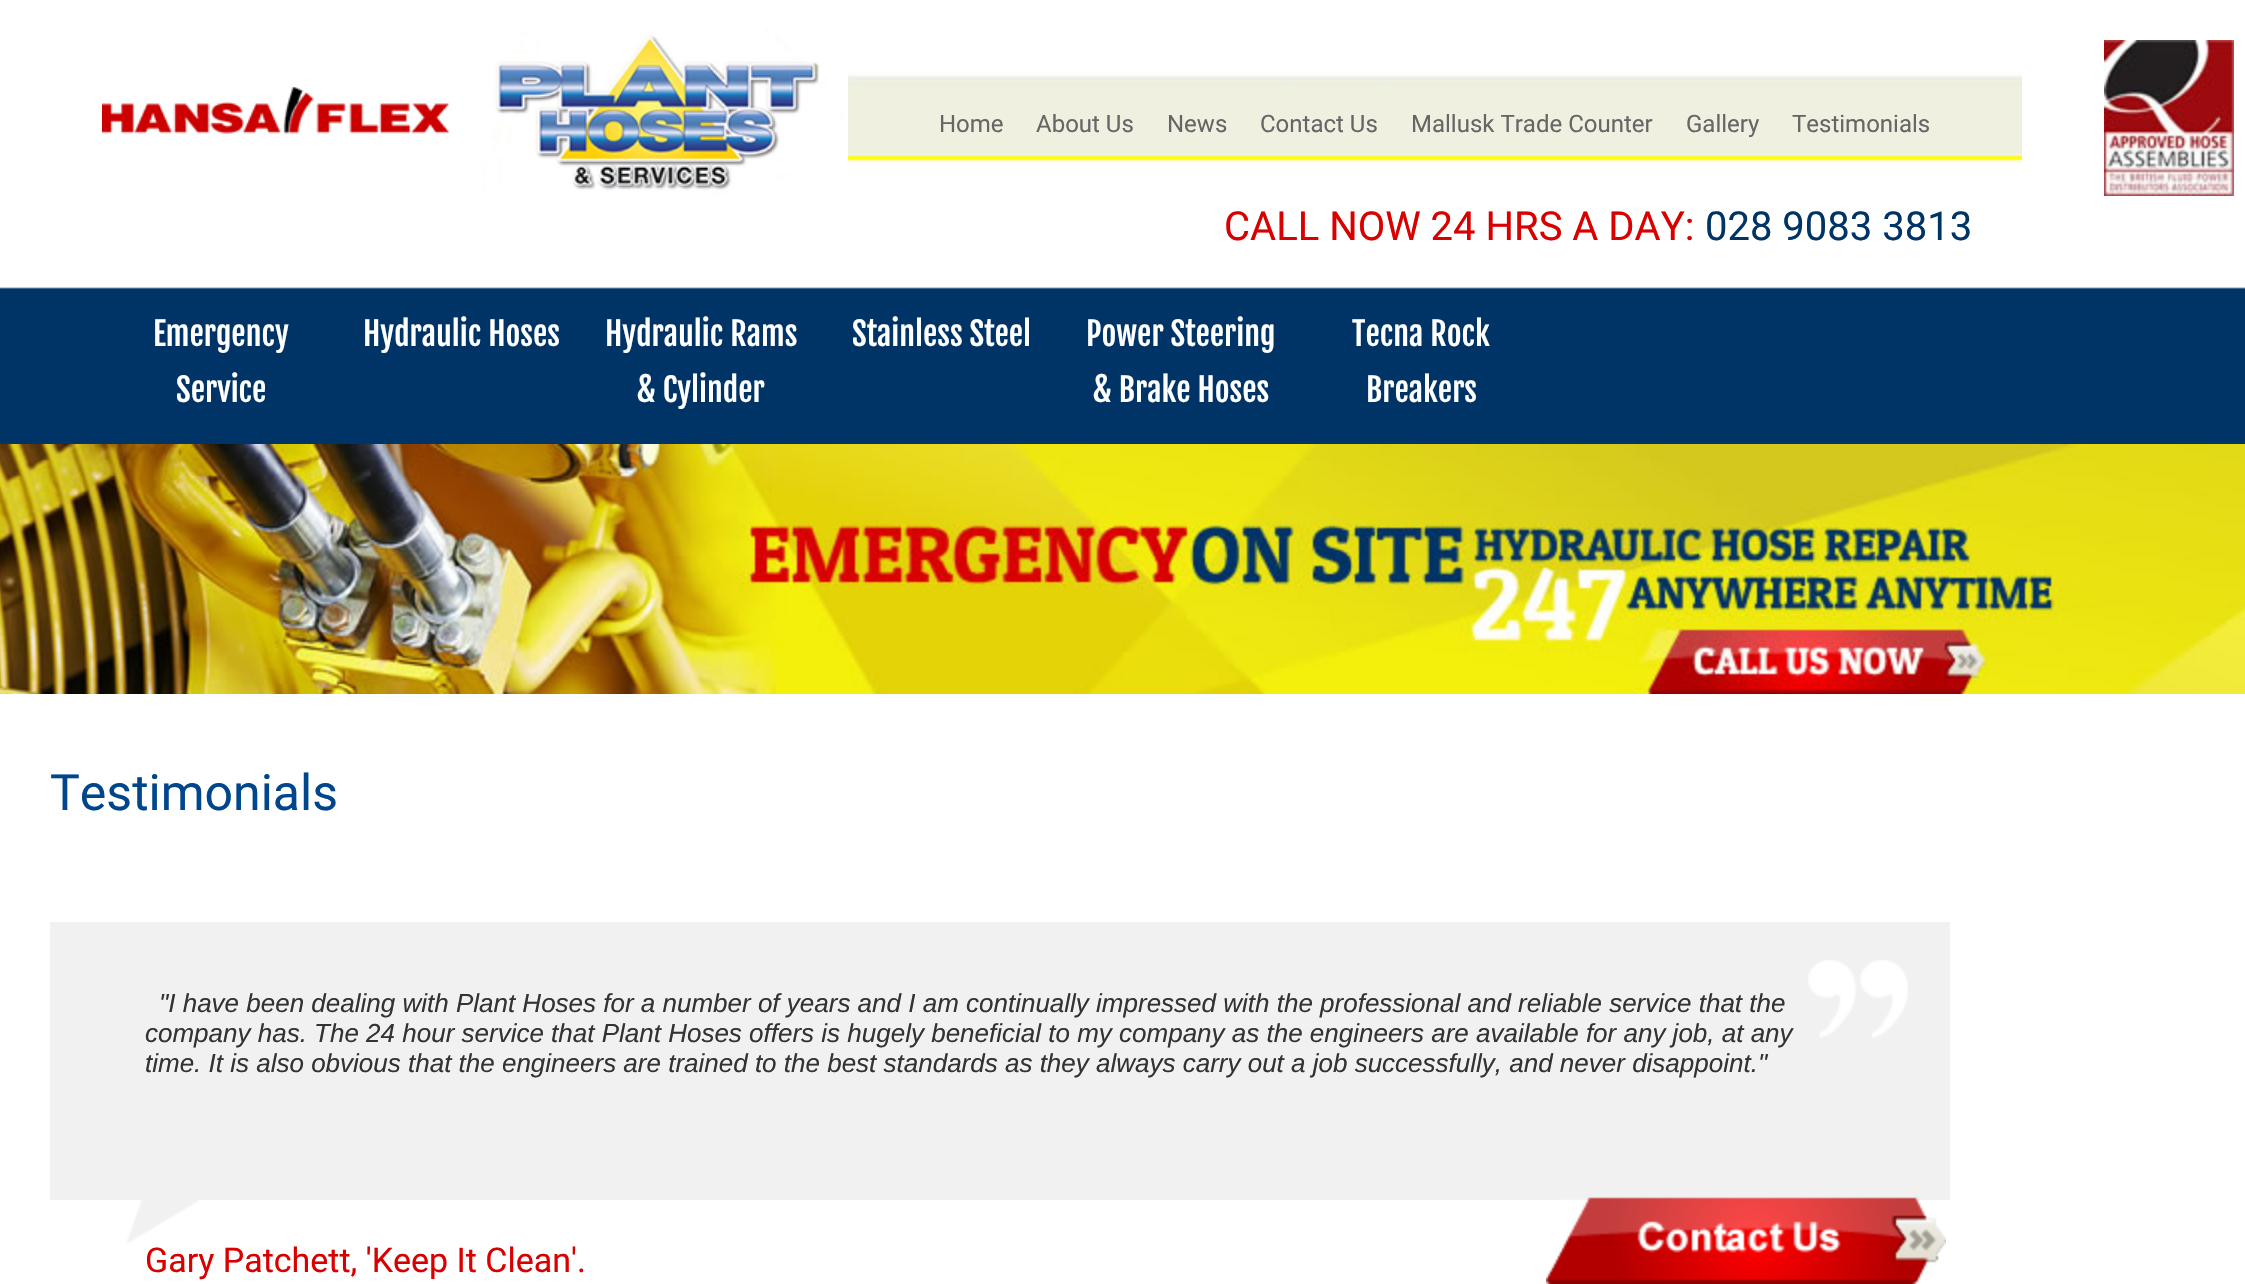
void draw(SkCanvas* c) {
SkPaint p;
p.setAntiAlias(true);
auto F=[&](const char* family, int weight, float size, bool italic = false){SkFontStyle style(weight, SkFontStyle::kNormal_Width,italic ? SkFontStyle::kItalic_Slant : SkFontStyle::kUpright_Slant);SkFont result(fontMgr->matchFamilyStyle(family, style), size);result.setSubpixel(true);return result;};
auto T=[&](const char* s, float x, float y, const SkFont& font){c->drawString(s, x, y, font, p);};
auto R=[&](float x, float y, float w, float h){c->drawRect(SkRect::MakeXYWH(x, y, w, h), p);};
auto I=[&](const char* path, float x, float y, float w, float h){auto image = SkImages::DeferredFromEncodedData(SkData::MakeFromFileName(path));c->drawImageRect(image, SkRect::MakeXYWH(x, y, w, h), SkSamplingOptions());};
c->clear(0xffffffff);
p.setColor(0xff003366);
R(0,289,2245,155);
I("1.png",0,0,2245,289);
I("2.png",102,28,745,169);
I("3.png",848,71,1174,93);
auto f1 = F("Roboto",400,24);
p.setColor(0xff666666);
T("Home",939,132,f1);
T("About Us",1036,132,f1);
T("News",1167,132,f1);
T("Contact Us",1260,132,f1);
T("Mallusk Trade Counter",1411,132,f1);
T("Gallery",1686,132,f1);
T("Testimonials",1792,132,f1);
I("4.png",2104,40,130,156);
auto f2 = F("Roboto",400,40);
p.setColor(0xffd90000);
T("CALL NOW 24 HRS A DAY:",1224,240,f2);
p.setColor(0xff003366);
T("028 9083 3813",1705,240,f2);
auto f3 = F("Fjalla One",400,32);
p.setColor(0xffffffff);
T("Emergency",153,346,f3);
T("Service",176,402,f3);
T("Hydraulic Hoses",363,346,f3);
T("Hydraulic Rams",605,346,f3);
T("& Cylinder",637,402,f3);
T("Stainless Steel",852,346,f3);
T("Power Steering",1086,346,f3);
T("& Brake Hoses",1093,402,f3);
T("Tecna Rock",1352,346,f3);
T("Breakers",1366,402,f3);
I("5.png",0,444,2245,250);
auto f4 = F("Roboto",400,50);
p.setColor(0xff00468c);
T("Testimonials",50,810,f4);
p.setColor(0xfff1f1f1);
R(50,922,1900,278);
I("6.png",1808,960,100,78);
auto f5 = F("Liberation Sans",400,26,true);
p.setColor(0xff333333);
T("\"I have been dealing with Plant Hoses for a number of years and I am continually impressed with the professional and reliable service that the",159,1012,f5);
T("company has. The 24 hour service that Plant Hoses offers is hugely beneficial to my company as the engineers are available for any job, at any",145,1042,f5);
T("time. It is also obvious that the engineers are trained to the best standards as they always carry out a job successfully, and never disappoint.\"",145,1072,f5);
I("7.png",126,1200,73,44);
auto f6 = F("Roboto",400,34);
p.setColor(0xffd90000);
T("Gary Patchett, 'Keep It Clean'.",145,1272,f6);
I("8.png",1546,1197,400,87);
}
